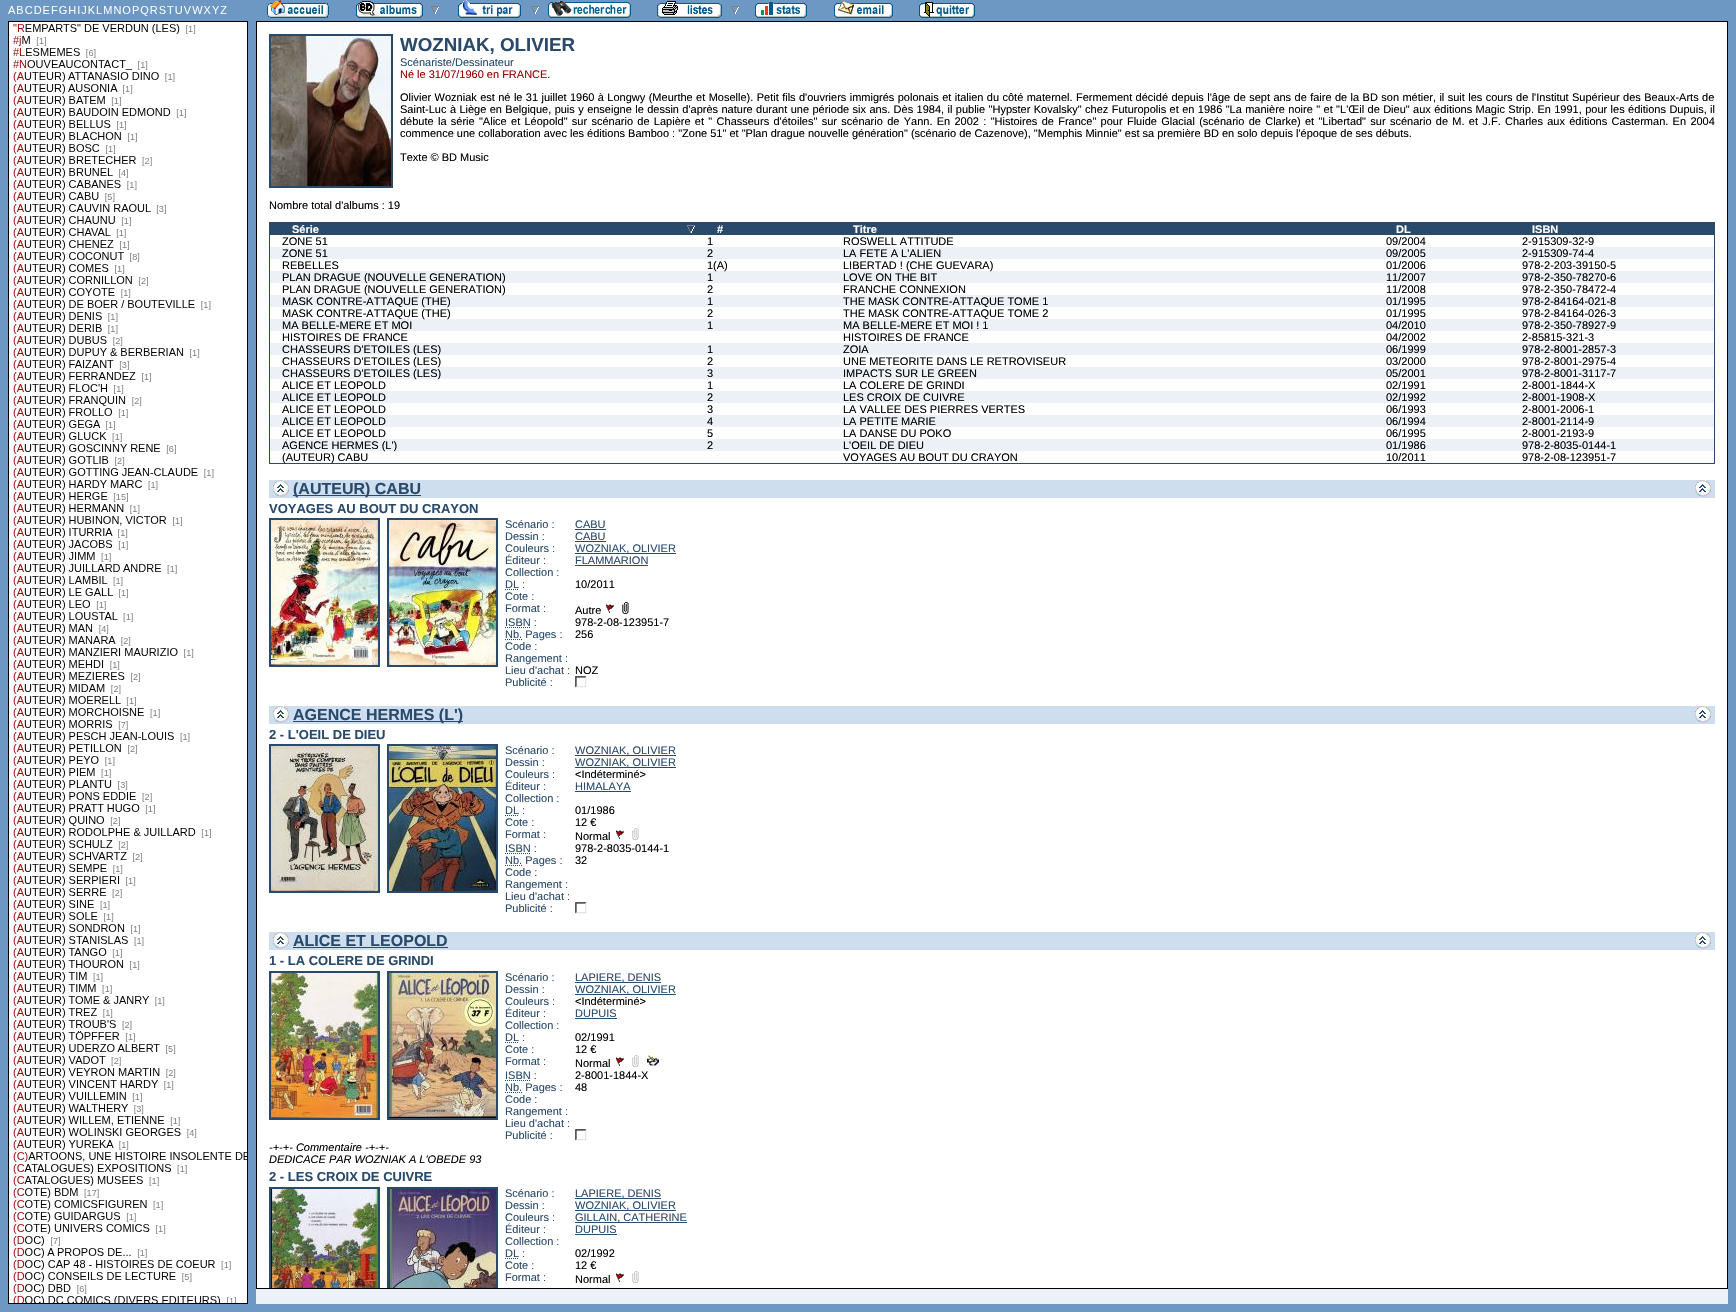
void draw(SkCanvas* c) {
SkPaint p;
p.setAntiAlias(true);
auto F=[&](const char* family, int weight, float size, bool italic = false){SkFontStyle style(weight, SkFontStyle::kNormal_Width,italic ? SkFontStyle::kItalic_Slant : SkFontStyle::kUpright_Slant);SkFont result(fontMgr->matchFamilyStyle(family, style), size);result.setSubpixel(true);return result;};
auto T=[&](const char* s, float x, float y, const SkFont& font){c->drawString(s, x, y, font, p);};
auto L=[&](const char* s, float x, float y, const SkFont& font, const SkPaint& ink, float letter, float word){std::vector<SkGlyphID> glyphs(font.countText(s, strlen(s), SkTextEncoding::kUTF8));std::vector<float> xs(glyphs.size());font.textToGlyphs(s, strlen(s), SkTextEncoding::kUTF8, glyphs);font.getXPos(glyphs, xs, x);float extra = 0;for (size_t i = 0; i < glyphs.size(); i++) {xs[i] += extra;extra += letter + word * (glyphs[i] == font.unicharToGlyph(' '));}c->drawTextBlob(SkTextBlob::MakeFromPosHGlyphs(glyphs, xs, y, font), 0, 0, ink);};
auto R=[&](float x, float y, float w, float h){c->drawRect(SkRect::MakeXYWH(x, y, w, h), p);};
auto I=[&](const char* path, float x, float y, float w, float h){auto image = SkImages::DeferredFromEncodedData(SkData::MakeFromFileName(path));c->drawImageRect(image, SkRect::MakeXYWH(x, y, w, h), SkSamplingOptions());};
auto P=[&](const char* data, bool evenOdd = false){SkPath result = *SkParsePath::FromSVGString(data);if (evenOdd) result.setFillType(SkPathFillType::kEvenOdd);return result;};
c->clear(0xff6d98c3);
I("1.png",8,6,240,1298);
I("2.png",267,0,62,18);
I("3.png",431,6,8,8);
I("4.png",356,1,67,17);
I("3.png",531,6,8,8);
I("5.png",458,0,63,18);
I("6.png",548,1,83,17);
I("3.png",731,6,8,8);
I("7.png",657,1,65,17);
I("8.png",755,2,52,16);
I("9.png",834,1,59,17);
I("10.png",919,2,56,16);
p.setColor(0xffffffff);
c->drawRect(SkRect::MakeXYWH(256.5,21.5,1471,1267),p);
p.setStroke(true);
p.setStrokeWidth(1);
p.setColor(0xff000000);
c->drawRect(SkRect::MakeXYWH(256.5,21.5,1471,1267),p);
p.setStrokeWidth(2);
p.setColor(0xff294a6b);
c->drawRect(SkRect::MakeXYWH(270,35,122,152),p);
I("11.png",271,36,120,150);
auto f1 = F("Liberation Sans",700,18.75);
p.setStroke(false);
T("WOZNIAK, OLIVIER",400,51,f1);
auto f2 = F("Liberation Sans",400,11);
T("Scénariste/Dessinateur",400,66,f2);
p.setColor(0xff990000);
T("Né le 31/07/1960 en FRANCE.",400,78,f2);
p.setColor(0xff000000);
L("Olivier Wozniak est né le 31 juillet 1960 à Longwy (Meurthe et Moselle). Petit fils d'ouvriers immigrés polonais et italien du côté maternel. Fermement décidé depuis l'âge de sept ans de faire de la BD son métier, il suit les cours de l'Institut Supérieur des Beaux-Arts de",400,101,f2,p,0,.35);
L("Saint-Luc à Liège en Belgique, puis y enseigne le dessin d'après nature durant une période six ans. Dès 1984, il publie \"Hypster Kovalsky\" chez Futuropolis et en 1986 \"La manière noire \" et \"L'Œil de Dieu\" aux éditions Magic Strip. En 1991, pour les éditions Dupuis, il",400,113,f2,p,0,.35);
L("débute la série \"Alice et Léopold\" sur scénario de Lapière et \" Chasseurs d'étoiles\" sur scénario de Yann. En 2002 : \"Histoires de France\" pour Fluide Glacial (scénario de Clarke) et \"Libertad\" sur scénario de M. et J.F. Charles aux éditions Casterman. En 2004",400,125,f2,p,0,1.25);
T("commence une collaboration avec les éditions Bamboo : \"Zone 51\" et \"Plan drague nouvelle génération\" (scénario de Cazenove), \"Memphis Minnie\" est sa première BD en solo depuis l'époque de ses débuts.",400,137,f2);
T("Texte © BD Music",400,161,f2);
T("Nombre total d'albums : 19",269,209,f2);
p.setStroke(true);
p.setStrokeWidth(1);
p.setColor(0xff294a6b);
c->drawRect(SkRect::MakeXYWH(269.5,222.5,1445,241),p);
p.setStroke(false);
R(270,223,1444,12);
I("12.png",687,225,8,8);
auto f3 = F("Liberation Sans",700,11);
p.setColor(0xffffffff);
T("Série",292,233,f3);
T("#",717,233,f3);
T("Titre",853,233,f3);
T("DL",1396,233,f3);
T("ISBN",1532,233,f3);
p.setColor(0xff000000);
T("ZONE 51",282,245,f2);
T("1",707,245,f2);
T("ROSWELL ATTITUDE",843,245,f2);
T("09/2004",1386,245,f2);
T("2-915309-32-9",1522,245,f2);
p.setColor(0xffebf1f7);
R(270,247,1444,12);
p.setColor(0xff000000);
T("ZONE 51",282,257,f2);
T("2",707,257,f2);
T("LA FETE A L'ALIEN",843,257,f2);
T("09/2005",1386,257,f2);
T("2-915309-74-4",1522,257,f2);
T("REBELLES",282,269,f2);
p.setColor(0xffebf1f7);
R(270,271,1444,12);
p.setColor(0xff000000);
T("1(A)",707,269,f2);
T("LIBERTAD ! (CHE GUEVARA)",843,269,f2);
T("01/2006",1386,269,f2);
T("978-2-203-39150-5",1522,269,f2);
T("PLAN DRAGUE (NOUVELLE GENERATION)",282,281,f2);
T("1",707,281,f2);
T("LOVE ON THE BIT",843,281,f2);
T("11/2007",1386,281,f2);
T("978-2-350-78270-6",1522,281,f2);
p.setColor(0xffebf1f7);
R(270,295,1444,12);
p.setColor(0xff000000);
T("PLAN DRAGUE (NOUVELLE GENERATION)",282,293,f2);
T("2",707,293,f2);
T("FRANCHE CONNEXION",843,293,f2);
T("11/2008",1386,293,f2);
T("978-2-350-78472-4",1522,293,f2);
T("MASK CONTRE-ATTAQUE (THE)",282,305,f2);
T("1",707,305,f2);
T("THE MASK CONTRE-ATTAQUE TOME 1",843,305,f2);
T("01/1995",1386,305,f2);
T("978-2-84164-021-8",1522,305,f2);
p.setColor(0xffebf1f7);
R(270,319,1444,12);
p.setColor(0xff000000);
T("MASK CONTRE-ATTAQUE (THE)",282,317,f2);
T("2",707,317,f2);
T("THE MASK CONTRE-ATTAQUE TOME 2",843,317,f2);
T("01/1995",1386,317,f2);
T("978-2-84164-026-3",1522,317,f2);
T("MA BELLE-MERE ET MOI",282,329,f2);
T("1",707,329,f2);
T("MA BELLE-MERE ET MOI ! 1",843,329,f2);
T("04/2010",1386,329,f2);
T("978-2-350-78927-9",1522,329,f2);
T("HISTOIRES DE FRANCE",282,341,f2);
T("HISTOIRES DE FRANCE",843,341,f2);
T("04/2002",1386,341,f2);
T("2-85815-321-3",1522,341,f2);
p.setColor(0xffebf1f7);
R(270,343,1444,12);
p.setColor(0xff000000);
T("CHASSEURS D'ETOILES (LES)",282,353,f2);
T("1",707,353,f2);
T("ZOIA",843,353,f2);
T("06/1999",1386,353,f2);
T("978-2-8001-2857-3",1522,353,f2);
p.setColor(0xffebf1f7);
R(270,367,1444,12);
p.setColor(0xff000000);
T("CHASSEURS D'ETOILES (LES)",282,365,f2);
T("2",707,365,f2);
T("UNE METEORITE DANS LE RETROVISEUR",843,365,f2);
T("03/2000",1386,365,f2);
T("978-2-8001-2975-4",1522,365,f2);
T("CHASSEURS D'ETOILES (LES)",282,377,f2);
T("3",707,377,f2);
T("IMPACTS SUR LE GREEN",843,377,f2);
T("05/2001",1386,377,f2);
T("978-2-8001-3117-7",1522,377,f2);
T("ALICE ET LEOPOLD",282,389,f2);
T("1",707,389,f2);
T("LA COLERE DE GRINDI",843,389,f2);
T("02/1991",1386,389,f2);
T("2-8001-1844-X",1522,389,f2);
p.setColor(0xffebf1f7);
R(270,391,1444,12);
p.setColor(0xff000000);
T("ALICE ET LEOPOLD",282,401,f2);
T("2",707,401,f2);
T("LES CROIX DE CUIVRE",843,401,f2);
T("02/1992",1386,401,f2);
T("2-8001-1908-X",1522,401,f2);
T("ALICE ET LEOPOLD",282,413,f2);
T("3",707,413,f2);
T("LA VALLEE DES PIERRES VERTES",843,413,f2);
T("06/1993",1386,413,f2);
T("2-8001-2006-1",1522,413,f2);
p.setColor(0xffebf1f7);
R(270,415,1444,12);
p.setColor(0xff000000);
T("ALICE ET LEOPOLD",282,425,f2);
T("4",707,425,f2);
T("LA PETITE MARIE",843,425,f2);
T("06/1994",1386,425,f2);
T("2-8001-2114-9",1522,425,f2);
T("ALICE ET LEOPOLD",282,437,f2);
T("5",707,437,f2);
T("LA DANSE DU POKO",843,437,f2);
T("06/1995",1386,437,f2);
T("2-8001-2193-9",1522,437,f2);
p.setColor(0xffebf1f7);
R(270,439,1444,12);
p.setColor(0xff000000);
T("AGENCE HERMES (L')",282,449,f2);
T("2",707,449,f2);
T("L'OEIL DE DIEU",843,449,f2);
T("01/1986",1386,449,f2);
T("978-2-8035-0144-1",1522,449,f2);
T("(AUTEUR) CABU",282,461,f2);
T("VOYAGES AU BOUT DU CRAYON",843,461,f2);
T("10/2011",1386,461,f2);
T("978-2-08-123951-7",1522,461,f2);
p.setColor(0xffcedeef);
R(269,480,1446,18);
I("13.png",273,480,16,17);
I("13.png",1695,480,16,17);
p.setColor(0xff294a6b);
R(293,495,128,1);
auto f4 = F("Liberation Sans",700,16);
T("(AUTEUR) CABU",293,494,f4);
auto f5 = F("Liberation Sans",700,13);
T("VOYAGES AU BOUT DU CRAYON",269,513,f5);
p.setStroke(true);
p.setStrokeWidth(2);
c->drawRect(SkRect::MakeXYWH(270,519,109,147),p);
I("14.png",271,520,107,145);
c->drawRect(SkRect::MakeXYWH(388,519,109,147),p);
I("15.png",389,520,107,145);
p.setStroke(false);
T("Scénario :",505,528,f2);
T("CABU",575,528,f2);
R(575,529,31,1);
T("Dessin :",505,540,f2);
T("CABU",575,540,f2);
R(575,541,31,1);
T("Couleurs :",505,552,f2);
R(575,553,101,1);
T("WOZNIAK, OLIVIER",575,552,f2);
T("Éditeur :",505,564,f2);
T("FLAMMARION",575,564,f2);
R(575,565,73,1);
T("Collection :",505,576,f2);
T("DL :",505,588,f2);
p.setStroke(true);
p.setStrokeWidth(1);
p.setPathEffect(SkDashPathEffect::Make({{1,1}}, 0));
c->drawPath(P("M505 589.5h14"),p);
p.setPathEffect(nullptr);
p.setStroke(false);
p.setColor(0xff000000);
T("10/2011",575,588,f2);
p.setColor(0xff294a6b);
T("Cote :",505,600,f2);
T("Format :",505,612,f2);
p.setColor(0xff000000);
T("Autre",575,614,f2);
I("16.png",606,604,8,9);
I("17.png",622,602,7,12);
p.setColor(0xff294a6b);
T("ISBN :",505,626,f2);
p.setStroke(true);
p.setPathEffect(SkDashPathEffect::Make({{1,1}}, 0));
c->drawPath(P("M505 627.5h25.5"),p);
p.setPathEffect(nullptr);
p.setStroke(false);
p.setColor(0xff000000);
T("978-2-08-123951-7",575,626,f2);
p.setStroke(true);
p.setColor(0xff294a6b);
p.setPathEffect(SkDashPathEffect::Make({{1,1}}, 0));
c->drawPath(P("M505 639.5h17"),p);
p.setPathEffect(nullptr);
p.setStroke(false);
T("Nb. Pages :",505,638,f2);
p.setColor(0xff000000);
T("256",575,638,f2);
p.setColor(0xff294a6b);
T("Code :",505,650,f2);
T("Rangement :",505,662,f2);
T("Lieu d'achat :",505,674,f2);
p.setColor(0xff000000);
T("NOZ",575,674,f2);
p.setColor(0xff294a6b);
T("Publicité :",505,686,f2);
I("18.png",575,676,12,12);
p.setColor(0xffcedeef);
R(269,706,1446,18);
I("13.png",273,706,16,17);
I("13.png",1695,706,16,17);
p.setColor(0xff294a6b);
R(293,721,170,1);
T("AGENCE HERMES (L')",293,720,f4);
T("2 - L'OEIL DE DIEU",269,739,f5);
p.setStroke(true);
p.setStrokeWidth(2);
c->drawRect(SkRect::MakeXYWH(270,745,109,147),p);
I("19.png",271,746,107,145);
c->drawRect(SkRect::MakeXYWH(388,745,109,147),p);
I("20.png",389,746,107,145);
p.setStroke(false);
T("Scénario :",505,754,f2);
R(575,755,101,1);
T("WOZNIAK, OLIVIER",575,754,f2);
T("Dessin :",505,766,f2);
R(575,767,101,1);
T("WOZNIAK, OLIVIER",575,766,f2);
T("Couleurs :",505,778,f2);
p.setColor(0xff000000);
T("<Indéterminé>",575,778,f2);
p.setColor(0xff294a6b);
T("Éditeur :",505,790,f2);
T("HIMALAYA",575,790,f2);
R(575,791,56,1);
T("Collection :",505,802,f2);
T("DL :",505,814,f2);
p.setStroke(true);
p.setStrokeWidth(1);
p.setPathEffect(SkDashPathEffect::Make({{1,1}}, 0));
c->drawPath(P("M505 815.5h14"),p);
p.setPathEffect(nullptr);
p.setStroke(false);
p.setColor(0xff000000);
T("01/1986",575,814,f2);
p.setColor(0xff294a6b);
T("Cote :",505,826,f2);
p.setColor(0xff000000);
T("12 €",575,826,f2);
p.setColor(0xff294a6b);
T("Format :",505,838,f2);
p.setColor(0xff000000);
T("Normal",575,840,f2);
I("16.png",616,830,8,9);
I("21.png",632,828,7,12);
p.setColor(0xff294a6b);
T("ISBN :",505,852,f2);
p.setStroke(true);
p.setPathEffect(SkDashPathEffect::Make({{1,1}}, 0));
c->drawPath(P("M505 853.5h25.5"),p);
p.setPathEffect(nullptr);
p.setStroke(false);
p.setColor(0xff000000);
T("978-2-8035-0144-1",575,852,f2);
p.setStroke(true);
p.setColor(0xff294a6b);
p.setPathEffect(SkDashPathEffect::Make({{1,1}}, 0));
c->drawPath(P("M505 865.5h17"),p);
p.setPathEffect(nullptr);
p.setStroke(false);
T("Nb. Pages :",505,864,f2);
p.setColor(0xff000000);
T("32",575,864,f2);
p.setColor(0xff294a6b);
T("Code :",505,876,f2);
T("Rangement :",505,888,f2);
T("Lieu d'achat :",505,900,f2);
T("Publicité :",505,912,f2);
I("18.png",575,902,12,12);
p.setColor(0xffcedeef);
R(269,932,1446,18);
I("13.png",273,932,16,17);
I("13.png",1695,932,16,17);
p.setColor(0xff294a6b);
T("ALICE ET LEOPOLD",293,946,f4);
R(293,947,155,1);
T("1 - LA COLERE DE GRINDI",269,965,f5);
p.setStroke(true);
p.setStrokeWidth(2);
c->drawRect(SkRect::MakeXYWH(270,972,109,147),p);
I("22.png",271,973,107,145);
c->drawRect(SkRect::MakeXYWH(388,972,109,147),p);
I("23.png",389,973,107,145);
p.setStroke(false);
T("Scénario :",505,981,f2);
R(575,982,86,1);
T("LAPIERE, DENIS",575,981,f2);
T("Dessin :",505,993,f2);
R(575,994,101,1);
T("WOZNIAK, OLIVIER",575,993,f2);
T("Couleurs :",505,1005,f2);
p.setColor(0xff000000);
T("<Indéterminé>",575,1005,f2);
p.setColor(0xff294a6b);
T("Éditeur :",505,1017,f2);
T("DUPUIS",575,1017,f2);
R(575,1018,42,1);
T("Collection :",505,1029,f2);
T("DL :",505,1041,f2);
p.setStroke(true);
p.setStrokeWidth(1);
p.setPathEffect(SkDashPathEffect::Make({{1,1}}, 0));
c->drawPath(P("M505 1042.5h14"),p);
p.setPathEffect(nullptr);
p.setStroke(false);
p.setColor(0xff000000);
T("02/1991",575,1041,f2);
p.setColor(0xff294a6b);
T("Cote :",505,1053,f2);
p.setColor(0xff000000);
T("12 €",575,1053,f2);
p.setColor(0xff294a6b);
T("Format :",505,1065,f2);
p.setColor(0xff000000);
T("Normal",575,1067,f2);
I("16.png",616,1057,8,9);
I("21.png",632,1055,7,12);
I("24.png",647,1055,12,11);
p.setColor(0xff294a6b);
T("ISBN :",505,1079,f2);
p.setStroke(true);
p.setPathEffect(SkDashPathEffect::Make({{1,1}}, 0));
c->drawPath(P("M505 1080.5h25.5"),p);
p.setPathEffect(nullptr);
p.setStroke(false);
p.setColor(0xff000000);
T("2-8001-1844-X",575,1079,f2);
p.setStroke(true);
p.setColor(0xff294a6b);
p.setPathEffect(SkDashPathEffect::Make({{1,1}}, 0));
c->drawPath(P("M505 1092.5h17"),p);
p.setPathEffect(nullptr);
p.setStroke(false);
T("Nb. Pages :",505,1091,f2);
p.setColor(0xff000000);
T("48",575,1091,f2);
p.setColor(0xff294a6b);
T("Code :",505,1103,f2);
T("Rangement :",505,1115,f2);
T("Lieu d'achat :",505,1127,f2);
T("Publicité :",505,1139,f2);
I("18.png",575,1129,12,12);
auto f6 = F("Liberation Sans",400,11,true);
p.setColor(0xff000000);
T("-+-+- Commentaire -+-+-",269,1151,f6);
T("DEDICACE PAR WOZNIAK A L'OBEDE 93",269,1163,f6);
p.setColor(0xff294a6b);
T("2 - LES CROIX DE CUIVRE",269,1181,f5);
c->save();
c->clipRect(SkRect::MakeXYWH(257,22,1470,1266));
p.setStroke(true);
p.setStrokeWidth(2);
c->drawRect(SkRect::MakeXYWH(270,1188,109,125),p);
c->restore();
I("25.png",271,1189,107,99);
c->save();
c->clipRect(SkRect::MakeXYWH(257,22,1470,1266));
c->drawRect(SkRect::MakeXYWH(388,1188,109,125),p);
c->restore();
I("26.png",389,1189,107,99);
p.setStroke(false);
T("Scénario :",505,1197,f2);
R(575,1198,86,1);
T("LAPIERE, DENIS",575,1197,f2);
T("Dessin :",505,1209,f2);
R(575,1210,101,1);
T("WOZNIAK, OLIVIER",575,1209,f2);
T("Couleurs :",505,1221,f2);
R(575,1222,112,1);
T("GILLAIN, CATHERINE",575,1221,f2);
T("Éditeur :",505,1233,f2);
T("DUPUIS",575,1233,f2);
R(575,1234,42,1);
T("Collection :",505,1245,f2);
T("DL :",505,1257,f2);
p.setStroke(true);
p.setStrokeWidth(1);
p.setPathEffect(SkDashPathEffect::Make({{1,1}}, 0));
c->drawPath(P("M505 1258.5h14"),p);
p.setPathEffect(nullptr);
p.setStroke(false);
p.setColor(0xff000000);
T("02/1992",575,1257,f2);
p.setColor(0xff294a6b);
T("Cote :",505,1269,f2);
p.setColor(0xff000000);
T("12 €",575,1269,f2);
p.setColor(0xff294a6b);
T("Format :",505,1281,f2);
p.setColor(0xff000000);
T("Normal",575,1283,f2);
I("16.png",616,1273,8,9);
I("21.png",632,1271,7,12);
p.setColor(0xffebf1f7);
R(256,1289,1472,15);
}
